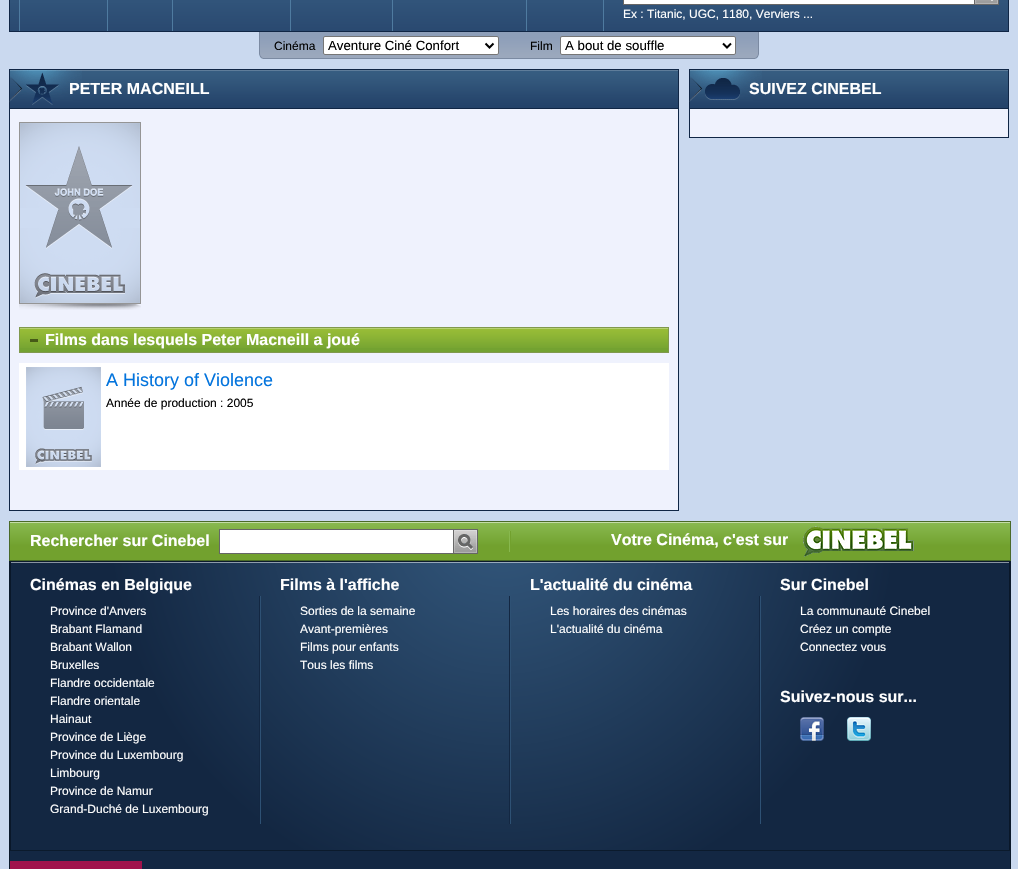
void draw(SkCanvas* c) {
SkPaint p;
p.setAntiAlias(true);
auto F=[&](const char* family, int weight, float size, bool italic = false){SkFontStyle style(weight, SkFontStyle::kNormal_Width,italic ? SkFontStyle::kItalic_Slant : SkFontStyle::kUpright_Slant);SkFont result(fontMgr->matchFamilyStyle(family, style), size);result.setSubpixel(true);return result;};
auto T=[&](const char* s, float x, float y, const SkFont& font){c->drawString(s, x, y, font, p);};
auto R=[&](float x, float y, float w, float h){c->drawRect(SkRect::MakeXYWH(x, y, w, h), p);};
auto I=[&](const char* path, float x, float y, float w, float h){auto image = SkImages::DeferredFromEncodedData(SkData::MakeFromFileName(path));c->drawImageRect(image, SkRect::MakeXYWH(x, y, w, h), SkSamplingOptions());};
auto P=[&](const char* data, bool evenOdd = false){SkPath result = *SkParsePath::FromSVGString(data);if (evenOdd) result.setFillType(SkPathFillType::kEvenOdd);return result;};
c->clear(0xffcad9ef);
I("1.png",10,0,998,31);
p.setStroke(true);
p.setStrokeWidth(1);
p.setColor(0xff102645);
c->drawRect(SkRect::MakeXYWH(9.5,-.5,999,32),p);
p.setStroke(false);
p.setColor(0xff4f7ba0);
R(107,0,1,31);
R(19,0,1,31);
R(172,0,1,31);
R(290,0,1,31);
R(392,0,1,31);
R(526,0,1,31);
R(603,0,1,31);
p.setColor(0xffffffff);
R(623,0,351,4);
p.setStroke(true);
p.setColor(0xff666666);
c->drawRect(SkRect::MakeXYWH(623.5,-.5,375,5),p);
I("2.png",974,0,24,4);
auto f1 = F("Liberation Sans",400,12);
p.setStroke(false);
p.setColor(0xffffffff);
T("Ex : Titanic, UGC, 1180, Verviers ...",623,18,f1);
I("3.png",259,32,250,27);
p.setColor(0xff000000);
T("Cinéma",274,50,f1);
p.setColor(0xffffffff);
c->drawRoundRect(SkRect::MakeXYWH(323.5,36.5,175,18),1.5,1.5,p);
p.setStroke(true);
p.setColor(0xff767676);
c->drawRoundRect(SkRect::MakeXYWH(323.5,36.5,175,18),1.5,1.5,p);
p.setStrokeWidth(2);
p.setColor(0xff000000);
c->drawPath(P("M485.5 43.5l4 4l4-4"),p);
auto f2 = F("Liberation Sans",400,13.25);
p.setStroke(false);
T("Aventure Ciné Confort",328,50,f2);
I("4.png",509,32,250,27);
T("Film",530,50,f1);
p.setColor(0xffffffff);
c->drawRoundRect(SkRect::MakeXYWH(560.5,36.5,175,18),1.5,1.5,p);
p.setStroke(true);
p.setStrokeWidth(1);
p.setColor(0xff767676);
c->drawRoundRect(SkRect::MakeXYWH(560.5,36.5,175,18),1.5,1.5,p);
p.setStrokeWidth(2);
p.setColor(0xff000000);
c->drawPath(P("M723 43.5l4 4l4-4"),p);
p.setStroke(false);
T("A bout de souffle",565,50,f2);
p.setStroke(true);
p.setStrokeWidth(1);
p.setColor(0xff102645);
c->drawRect(SkRect::MakeXYWH(9.5,69.5,669,441),p);
I("5.png",10,70,668,38);
p.setStroke(false);
R(10,108,668,1);
I("6.png",9,70,73,35);
auto f3 = F("Liberation Sans",700,16);
p.setColor(0xffffffff);
T("PETER MACNEILL",69,94,f3);
p.setColor(0xffeff2fd);
R(10,109,668,401);
I("7.png",19,303,122,7);
p.setColor(0xff959595);
R(19,122,122,1);
R(19,122,1,181);
I("8.png",20,123,120,180);
R(140,122,1,181);
p.setStroke(true);
p.setColor(0xff80994d);
c->drawRect(SkRect::MakeXYWH(19.5,327.5,649,25),p);
p.setStroke(false);
p.setColor(0xff73a231);
R(20,348,648,4);
I("9.png",20,328,648,20);
p.setColor(0xff465a17);
R(30,339,8,3);
p.setColor(0xffffffff);
T("Films dans lesquels Peter Macneill a joué",45,345,f3);
R(19,363,650,107);
I("10.png",26,367,75,100);
auto f4 = F("Liberation Sans",400,18);
p.setColor(0xff0374dd);
T("A History of Violence",106,386,f4);
p.setColor(0xff000000);
T("Année de production : 2005",106,407,f1);
p.setStroke(true);
p.setColor(0xff102645);
c->drawRect(SkRect::MakeXYWH(689.5,69.5,319,68),p);
I("11.png",690,70,318,38);
p.setStroke(false);
R(690,108,318,1);
I("12.png",689,70,73,32);
p.setColor(0xffffffff);
T("SUIVEZ CINEBEL",749,94,f3);
p.setColor(0xffeff2fd);
R(690,109,318,28);
I("13.png",10,522,1000,38);
p.setStroke(true);
p.setColor(0xff4a6a28);
c->drawRect(SkRect::MakeXYWH(9.5,521.5,1001,39),p);
p.setStroke(false);
p.setColor(0xffffffff);
T("Rechercher sur Cinebel",30,546,f3);
R(220,530,233,23);
p.setStroke(true);
p.setColor(0xff666666);
c->drawRect(SkRect::MakeXYWH(219.5,529.5,258,24),p);
I("14.png",453,530,24,23);
I("15.png",509,531,2,21);
p.setStroke(false);
p.setColor(0xffffffff);
T("Votre Cinéma, c'est sur",611,545,f3);
I("16.png",803,526,111,31);
I("17.png",10,562,1000,288);
p.setColor(0xff0b1a2c);
R(9,561,1002,1);
R(1010,561,1,289);
R(9,561,1,289);
p.setColor(0xffffffff);
T("Cinémas en Belgique",30,590,f3);
T("Province d'Anvers",50,615,f1);
T("Brabant Flamand",50,633,f1);
T("Brabant Wallon",50,651,f1);
T("Bruxelles",50,669,f1);
T("Flandre occidentale",50,687,f1);
T("Flandre orientale",50,705,f1);
T("Hainaut",50,723,f1);
T("Province de Liège",50,741,f1);
T("Province du Luxembourg",50,759,f1);
T("Limbourg",50,777,f1);
T("Province de Namur",50,795,f1);
T("Grand-Duché de Luxembourg",50,813,f1);
T("Films à l'affiche",280,590,f3);
T("Sorties de la semaine",300,615,f1);
T("Avant-premières",300,633,f1);
T("Films pour enfants",300,651,f1);
T("Tous les films",300,669,f1);
T("L'actualité du cinéma",530,590,f3);
T("Les horaires des cinémas",550,615,f1);
T("L'actualité du cinéma",550,633,f1);
T("Sur Cinebel",780,590,f3);
T("La communauté Cinebel",800,615,f1);
T("Créez un compte",800,633,f1);
T("Connectez vous",800,651,f1);
T("Suivez-nous sur...",780,702,f3);
I("18.png",800,717,24,24);
I("19.png",847,717,24,24);
p.setColor(0xff132743);
c->drawRect(SkRect::MakeXYWH(9.5,850.5,1001,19),p);
p.setStroke(true);
p.setColor(0xff0b1a2c);
c->drawRect(SkRect::MakeXYWH(9.5,850.5,1001,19),p);
p.setStroke(false);
p.setColor(0xffa0134c);
R(10,861,132,8);
}
